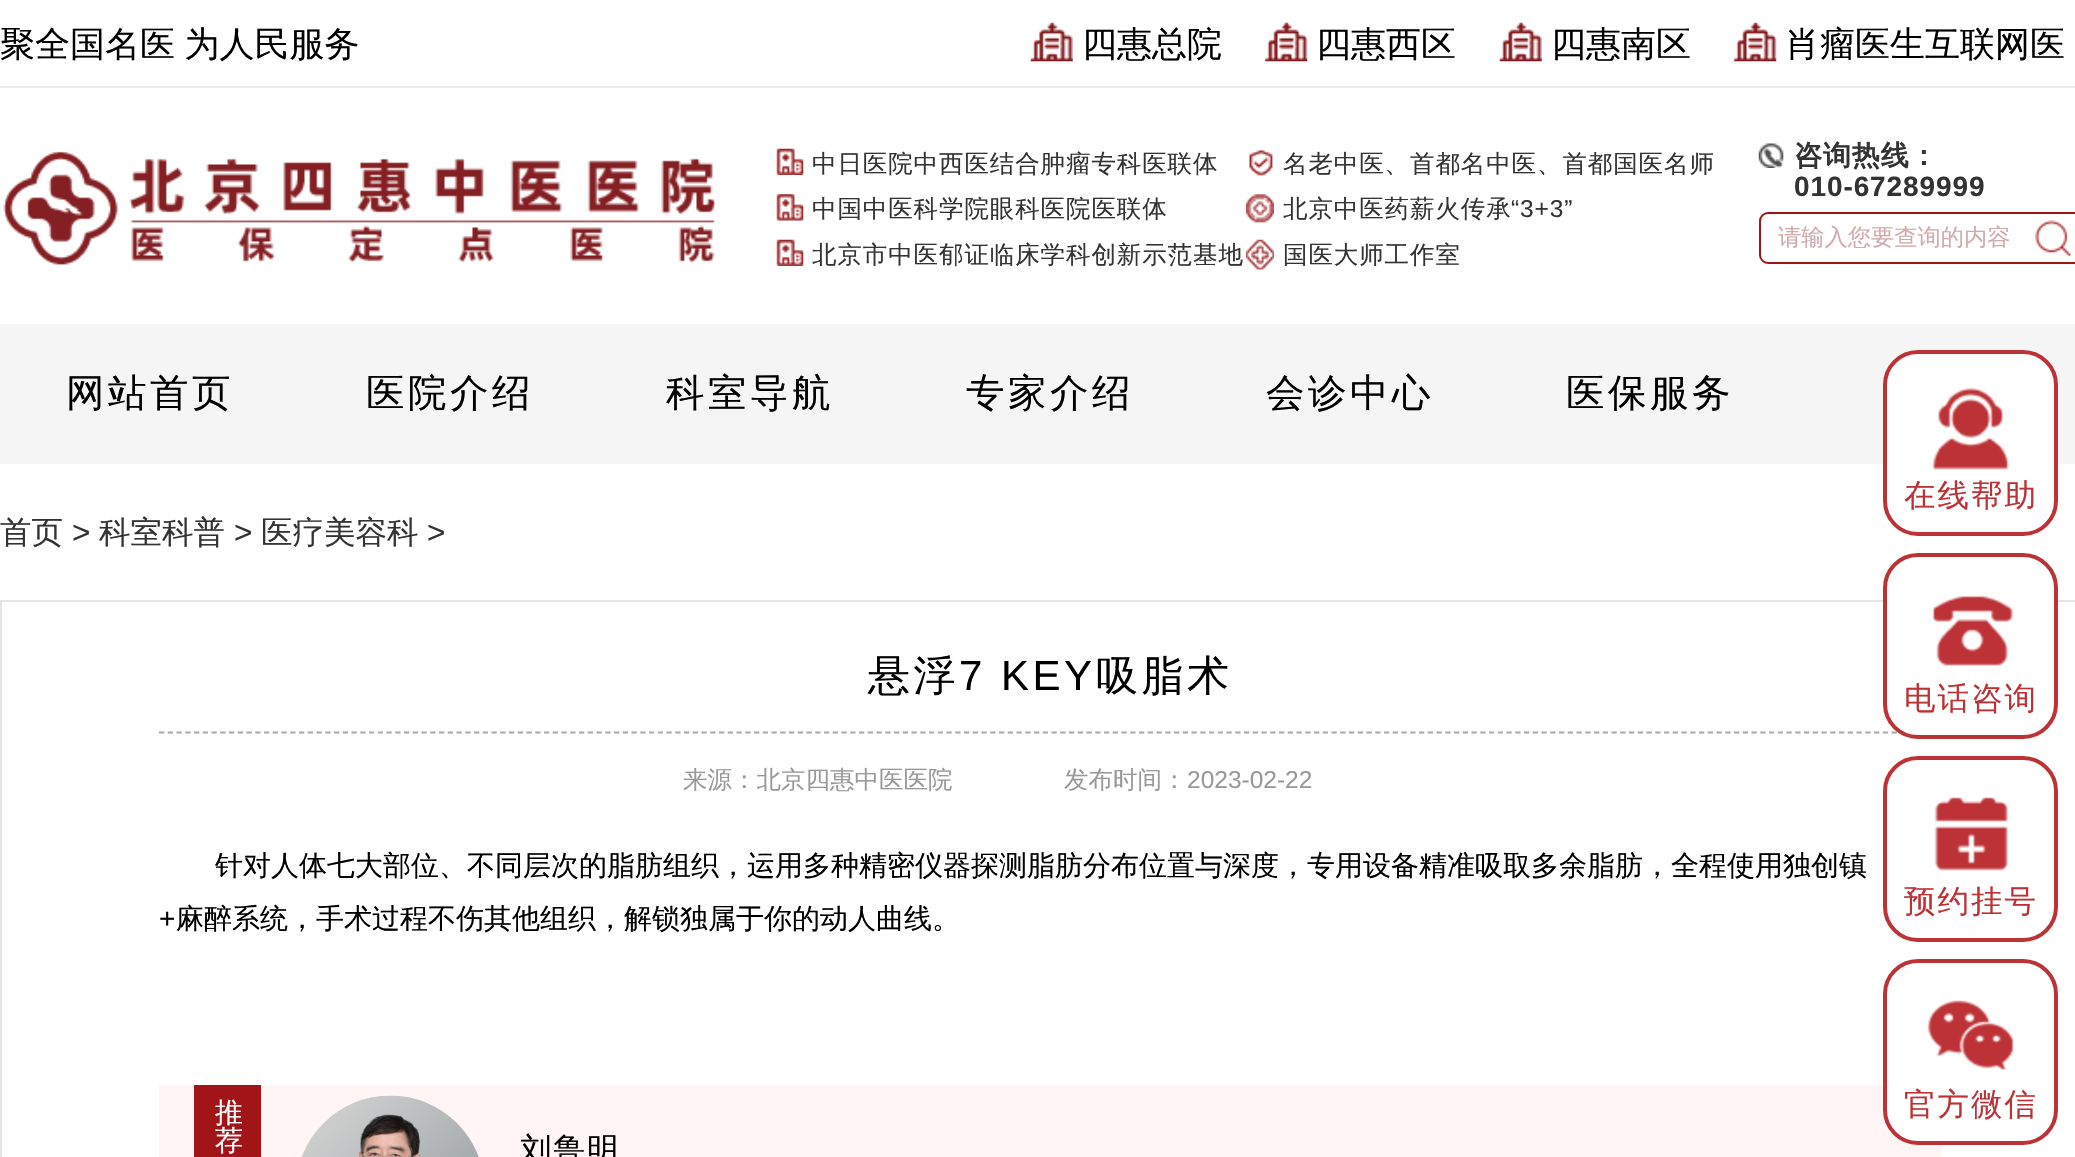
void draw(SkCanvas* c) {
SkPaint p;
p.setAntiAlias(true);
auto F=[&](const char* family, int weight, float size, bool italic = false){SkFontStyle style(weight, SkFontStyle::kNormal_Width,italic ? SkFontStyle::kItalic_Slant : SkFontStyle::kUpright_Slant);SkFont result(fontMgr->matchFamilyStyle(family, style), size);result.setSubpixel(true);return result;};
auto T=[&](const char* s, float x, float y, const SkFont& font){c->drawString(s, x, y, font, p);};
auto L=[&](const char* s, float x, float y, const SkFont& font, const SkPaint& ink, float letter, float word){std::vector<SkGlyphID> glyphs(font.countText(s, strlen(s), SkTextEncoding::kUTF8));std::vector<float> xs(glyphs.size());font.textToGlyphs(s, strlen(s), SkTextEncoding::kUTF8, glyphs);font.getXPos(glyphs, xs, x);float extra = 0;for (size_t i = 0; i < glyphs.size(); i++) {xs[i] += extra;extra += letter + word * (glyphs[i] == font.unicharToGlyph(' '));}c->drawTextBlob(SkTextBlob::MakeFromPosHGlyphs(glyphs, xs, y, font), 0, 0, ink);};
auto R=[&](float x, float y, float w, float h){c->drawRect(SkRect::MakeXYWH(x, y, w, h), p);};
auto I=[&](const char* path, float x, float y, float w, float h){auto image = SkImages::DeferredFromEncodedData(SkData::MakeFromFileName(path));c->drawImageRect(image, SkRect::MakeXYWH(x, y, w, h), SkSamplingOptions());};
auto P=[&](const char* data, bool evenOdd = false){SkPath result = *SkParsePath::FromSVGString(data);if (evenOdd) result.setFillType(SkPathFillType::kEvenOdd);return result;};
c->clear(0xffffffff);
p.setColor(0xffececec);
R(0,86,2075,2);
auto f1 = F("WenQuanYi Zen Hei",500,35);
p.setColor(0xff000000);
L("聚全国名医 为人民服务",0,56,f1,p,0,-1);
I("1.png",1030,22,43,40);
T("四惠总院",1082,56,f1);
I("2.png",1265,22,43,40);
T("四惠西区",1316,56,f1);
I("1.png",1499,22,43,40);
T("四惠南区",1551,56,f1);
I("2.png",1734,22,43,40);
T("肖瘤医生互联网医",1785,56,f1);
I("3.png",3,151,712,114);
I("4.png",776,148,28,27);
auto f2 = F("WenQuanYi Zen Hei",500,24.5);
p.setColor(0xff333333);
L("中日医院中西医结合肿瘤专科医联体",812,172,f2,p,.9,0);
I("5.png",1249,150,24,26);
L("名老中医、首都名中医、首都国医名师",1283,172,f2,p,.9,0);
I("6.png",776,194,28,27);
L("中国中医科学院眼科医院医联体",812,217,f2,p,.9,0);
I("7.png",1246,194,28,29);
L("北京中医药薪火传承",1283,217,f2,p,.9,0);
auto f3 = F("Liberation Sans",400,24.5);
L("“3+3”",1511,217,f3,p,.9,0);
I("4.png",776,239,28,27);
L("北京市中医郁证临床学科创新示范基地",812,263,f2,p,.9,0);
I("8.png",1246,239,28,31);
L("国医大师工作室",1283,263,f2,p,.9,0);
I("9.png",1758,143,26,25);
auto f4 = F("WenQuanYi Zen Hei",700,28);
L("咨询热线：",1794,165,f4,p,.9,0);
auto f5 = F("Liberation Sans",700,28);
L("010-67289999",1794,196,f5,p,.9,0);
p.setStroke(true);
p.setStrokeWidth(2);
p.setColor(0xffa11519);
c->drawRoundRect(SkRect::MakeXYWH(1760,213,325,50),8,8,p);
auto f6 = F("WenQuanYi Zen Hei",500,23.25);
p.setStroke(false);
p.setColor(0xffd1abac);
T("请输入您要查询的内容",1778,245,f6);
I("10.png",2035,220,36,37);
p.setColor(0xfff5f5f5);
R(0,324,2075,140);
auto f7 = F("WenQuanYi Zen Hei",500,38.5);
p.setColor(0xff000000);
L("网站首页",66,406,f7,p,3.5,0);
L("医院介绍",366,406,f7,p,3.5,0);
L("科室导航",666,406,f7,p,3.5,0);
L("专家介绍",966,406,f7,p,3.5,0);
L("会诊中心",1266,406,f7,p,3.5,0);
L("医保服务",1566,406,f7,p,3.5,0);
auto f8 = F("WenQuanYi Zen Hei",500,31.5);
p.setColor(0xff333333);
T("首页",0,543,f8);
auto f9 = F("Liberation Sans",400,31.5);
T(">",72,543,f9);
T("科室科普",99,543,f8);
T(">",234,543,f9);
T("医疗美容科",261,543,f8);
T(">",427,543,f9);
p.setStroke(true);
p.setColor(0xffe6e6e6);
c->drawRect(SkRect::MakeXYWH(1,601,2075,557),p);
p.setStrokeWidth(1.8);
p.setColor(0xffa8a8a8);
p.setPathEffect(SkDashPathEffect::Make({{5.25f,3.5f}}, 0));
c->drawPath(P("M159 732.5h1782"),p);
p.setPathEffect(nullptr);
auto f10 = F("WenQuanYi Zen Hei",500,42);
p.setStroke(false);
p.setColor(0xff000000);
L("悬浮",868,690,f10,p,3.5,0);
auto f11 = F("Liberation Sans",400,42);
L("7 KEY",959,690,f11,p,3.5,0);
L("吸脂术",1096,690,f10,p,3.5,0);
p.setColor(0xff999999);
T("来源：北京四惠中医医院",683,788,f2);
T("发布时间：",1064,788,f2);
T("2023-02-22",1187,788,f3);
auto f12 = F("WenQuanYi Zen Hei",500,28);
p.setColor(0xff000000);
L("针对人体七大部位、不同层次的脂肪组织，运用多种精密仪器探测脂肪分布位置与深度，专用设备精准吸取多余脂肪，全程使用独创镇",215,875,f12,p,0,-1);
auto f13 = F("Liberation Sans",400,28);
T("+",159,928,f13);
T("麻醉系统，手术过程不伤其他组织，解锁独属于你的动人曲线。",176,928,f12);
p.setColor(0xfffff5f5);
R(159,1085,1782,72);
p.setColor(0xffa11519);
R(194,1085,67,72);
p.setColor(0xffffffff);
T("推",215,1122,f12);
T("荐",215,1150,f12);
I("11.png",301,1095,178,62);
p.setColor(0xff000000);
L("刘鲁明",520,1160,f8,p,2,0);
p.setColor(0xffffffff);
c->drawRoundRect(SkRect::MakeXYWH(1885,352,171,182),33,33,p);
p.setStroke(true);
p.setStrokeWidth(4);
p.setColor(0xffbd3236);
c->drawRoundRect(SkRect::MakeXYWH(1885,352,171,182),33,33,p);
I("12.png",1932,387,77,83);
p.setStroke(false);
L("在线帮助",1904,506,f8,p,2,0);
p.setColor(0xffffffff);
c->drawRoundRect(SkRect::MakeXYWH(1885,555,171,182),33,33,p);
p.setStroke(true);
p.setColor(0xffbd3236);
c->drawRoundRect(SkRect::MakeXYWH(1885,555,171,182),33,33,p);
I("13.png",1932,595,82,71);
p.setStroke(false);
L("电话咨询",1904,709,f8,p,2,0);
p.setStroke(true);
c->drawRoundRect(SkRect::MakeXYWH(1885,758,171,182),33,33,p);
I("14.png",1934,797,75,74);
p.setStroke(false);
L("预约挂号",1904,912,f8,p,2,0);
p.setColor(0xffffffff);
c->drawRoundRect(SkRect::MakeXYWH(1885,961,171,182),33,33,p);
p.setStroke(true);
p.setColor(0xffbd3236);
c->drawRoundRect(SkRect::MakeXYWH(1885,961,171,182),33,33,p);
I("15.png",1927,1000,87,70);
p.setStroke(false);
L("官方微信",1904,1115,f8,p,2,0);
}
